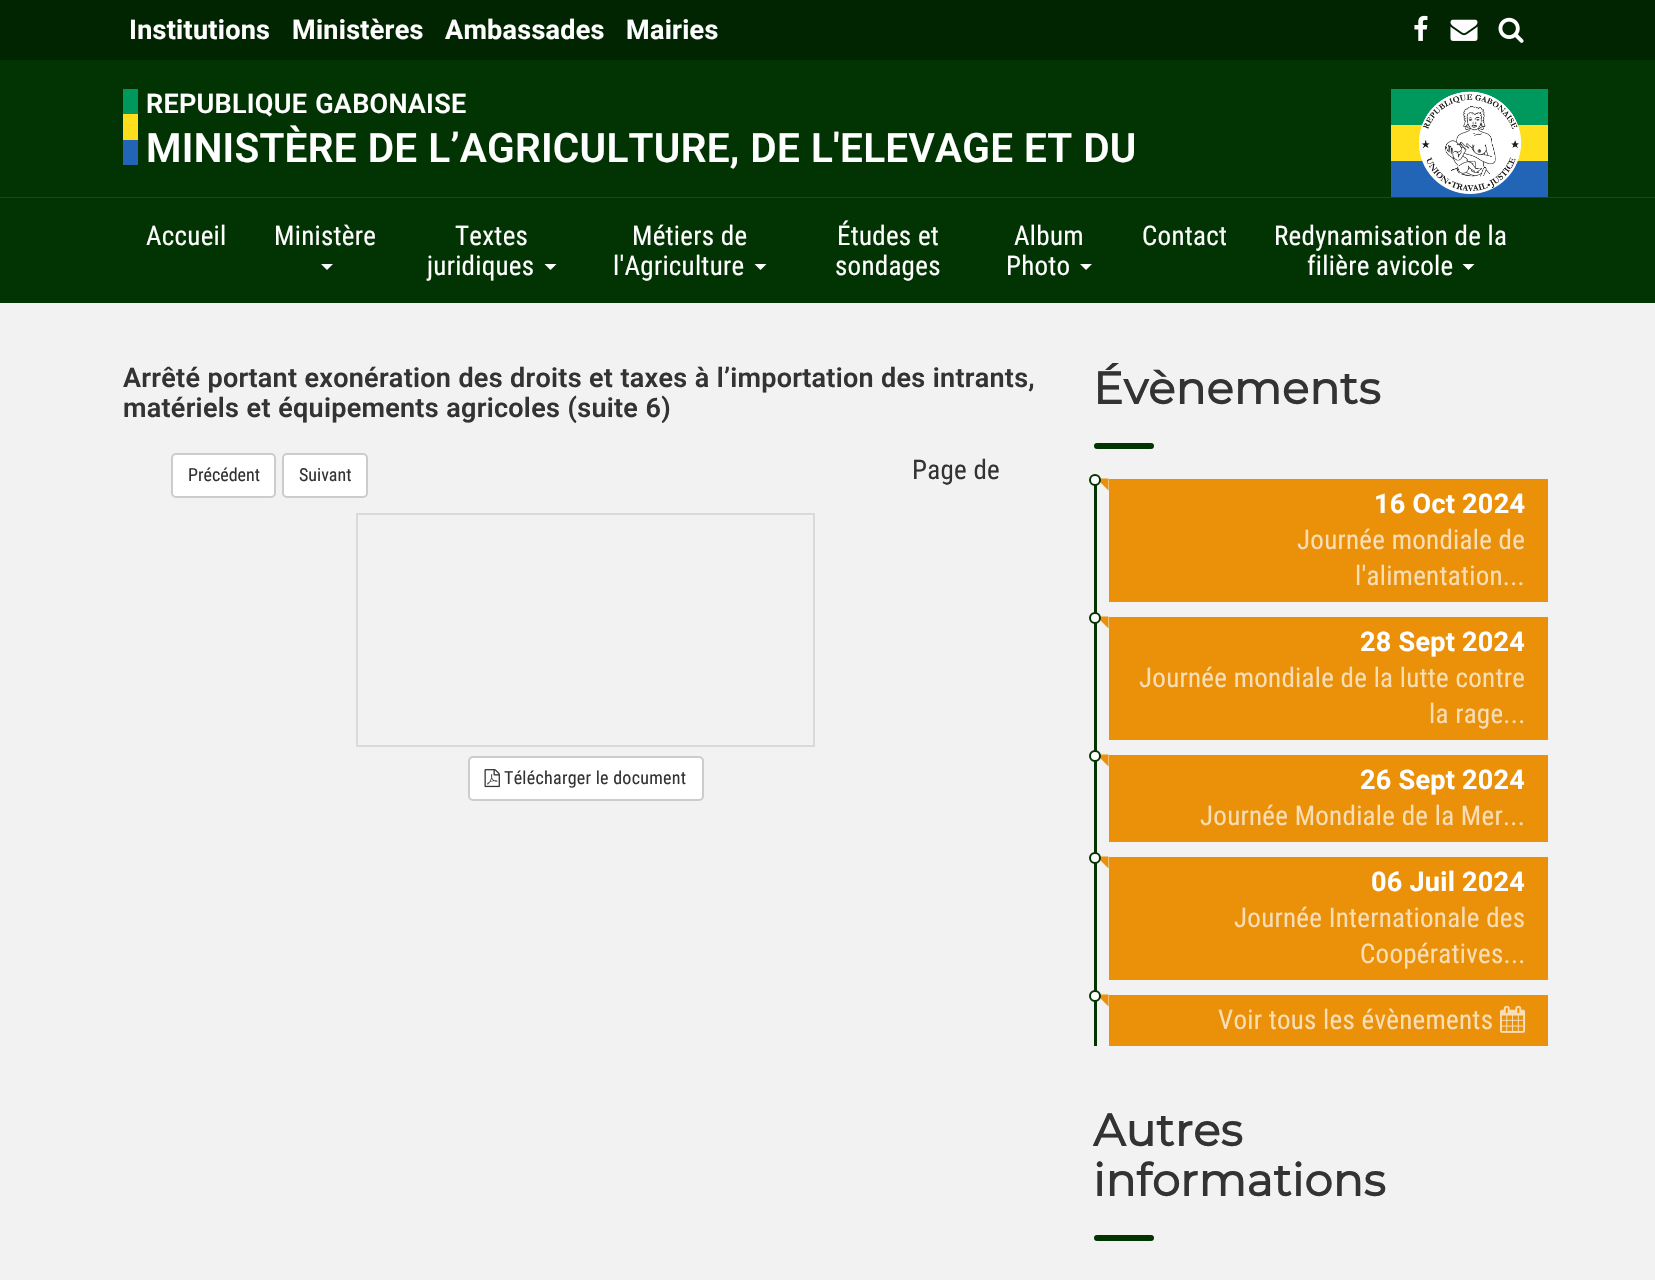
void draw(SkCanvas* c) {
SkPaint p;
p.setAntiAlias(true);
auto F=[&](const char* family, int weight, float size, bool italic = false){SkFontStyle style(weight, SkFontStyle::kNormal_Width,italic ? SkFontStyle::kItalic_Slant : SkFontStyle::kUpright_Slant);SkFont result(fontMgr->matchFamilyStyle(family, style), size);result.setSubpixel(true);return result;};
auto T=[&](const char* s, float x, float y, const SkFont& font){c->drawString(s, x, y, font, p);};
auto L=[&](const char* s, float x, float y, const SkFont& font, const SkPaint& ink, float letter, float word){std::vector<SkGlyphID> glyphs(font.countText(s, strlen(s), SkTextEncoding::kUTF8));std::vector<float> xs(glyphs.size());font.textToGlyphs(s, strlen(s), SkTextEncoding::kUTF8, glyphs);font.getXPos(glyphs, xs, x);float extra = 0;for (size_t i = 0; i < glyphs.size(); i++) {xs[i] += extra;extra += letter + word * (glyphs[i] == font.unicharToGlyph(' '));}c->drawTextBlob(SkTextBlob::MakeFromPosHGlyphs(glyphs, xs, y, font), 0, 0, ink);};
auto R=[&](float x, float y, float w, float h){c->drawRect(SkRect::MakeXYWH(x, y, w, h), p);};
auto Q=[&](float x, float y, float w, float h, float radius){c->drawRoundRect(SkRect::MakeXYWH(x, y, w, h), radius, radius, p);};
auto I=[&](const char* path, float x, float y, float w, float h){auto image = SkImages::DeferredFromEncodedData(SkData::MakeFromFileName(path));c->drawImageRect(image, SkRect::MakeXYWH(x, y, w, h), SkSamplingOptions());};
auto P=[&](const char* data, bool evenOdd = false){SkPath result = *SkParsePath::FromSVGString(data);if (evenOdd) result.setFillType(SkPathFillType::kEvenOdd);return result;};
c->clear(0xfff2f2f2);
p.setColor(0xff023302);
R(0,60,1655,137);
p.setColor(0xff1b471b);
R(0,197,1655,1);
p.setColor(0xff012401);
R(0,0,1655,60);
auto f1 = F("Roboto",700,27);
p.setColor(0xffffffff);
L("Institutions",129,39,f1,p,.27,0);
L("Ministères",292,39,f1,p,.27,0);
L("Ambassades",445,39,f1,p,.27,0);
L("Mairies",626,39,f1,p,.27,0);
I("1.png",1414,15,14,26);
I("2.png",1450,19,28,22);
I("3.png",1498,17,26,26);
p.setColor(0xff00995d);
R(123,89,15,25);
p.setColor(0xffffdf1b);
R(123,114,15,26);
p.setColor(0xff2265b7);
R(123,140,15,25);
auto f2 = F("Roboto",600,27);
p.setColor(0xffffffff);
L("REPUBLIQUE GABONAISE",146,113,f2,p,.27,1);
auto f3 = F("Roboto",600,40.5);
L("MINISTÈRE DE L’AGRICULTURE, DE L'ELEVAGE ET DU",146,162,f3,p,.27,.5);
p.setColor(0xff00995d);
R(1391,89,157,36);
p.setColor(0xffffdf1b);
R(1391,125,157,36);
p.setColor(0xff2265b7);
R(1391,161,157,36);
p.setColor(0xffffffff);
c->drawCircle(1470,143,51,p);
I("4.png",1419,91,102,103);
p.setColor(0xff023302);
R(0,198,1655,105);
auto f4 = F("Roboto Condensed",400,27);
p.setColor(0xffffffff);
L("Accueil",146,245,f4,p,.27,0);
L("Ministère",274,245,f4,p,.27,0);
c->drawPath(P("M321 264h12l-6 6z"),p);
L("Textes",455,245,f4,p,.27,0);
L("juridiques",427,275,f4,p,.27,0);
c->drawPath(P("M544.5 264h12l-6 6z"),p);
L("Métiers de",632,245,f4,p,.27,0);
L("l'Agriculture",613,275,f4,p,.27,0);
c->drawPath(P("M754.5 264h12l-6 6z"),p);
L("Études et",837,245,f4,p,.27,0);
L("sondages",835,275,f4,p,.27,0);
L("Album",1014,245,f4,p,.27,0);
L("Photo",1006,275,f4,p,.27,0);
c->drawPath(P("M1080 264h12l-6 6z"),p);
L("Contact",1142,245,f4,p,.27,0);
L("Redynamisation de la",1274,245,f4,p,.27,0);
L("filière avicole",1307,275,f4,p,.27,0);
c->drawPath(P("M1462.5 264h12l-6 6z"),p);
p.setColor(0xff333333);
L("Arrêté portant exonération des droits et taxes à l’importation des intrants,",123,387,f2,p,.27,.25);
L("matériels et équipements agricoles (suite 6)",123,417,f2,p,.27,.5);
p.setColor(0xffffffff);
c->drawRoundRect(SkRect::MakeXYWH(172,454,103,43),4,4,p);
p.setStroke(true);
p.setStrokeWidth(2);
p.setColor(0xffcccccc);
c->drawRoundRect(SkRect::MakeXYWH(172,454,103,43),4,4,p);
auto f5 = F("Roboto Condensed",400,18);
p.setStroke(false);
p.setColor(0xff333333);
T("Précédent",188,481,f5);
p.setColor(0xffffffff);
c->drawRoundRect(SkRect::MakeXYWH(283,454,84,43),4,4,p);
p.setStroke(true);
p.setColor(0xffcccccc);
c->drawRoundRect(SkRect::MakeXYWH(283,454,84,43),4,4,p);
p.setStroke(false);
p.setColor(0xff333333);
T("Suivant",299,481,f5);
L("Page de",912,479,f4,p,.27,0);
p.setStroke(true);
p.setColor(0xffdadada);
c->drawRect(SkRect::MakeXYWH(357,514,457,232),p);
p.setStroke(false);
p.setColor(0xffffffff);
c->drawRoundRect(SkRect::MakeXYWH(469,757,234,43),4,4,p);
p.setStroke(true);
p.setColor(0xffcccccc);
c->drawRoundRect(SkRect::MakeXYWH(469,757,234,43),4,4,p);
I("5.png",484,769,16,19);
p.setStroke(false);
p.setColor(0xff333333);
L("Télécharger le document",504,784,f5,p,.27,0);
auto f6 = F("Montserrat",700,45);
L("Évènements",1093,404,f6,p,.27,0);
p.setColor(0xff023302);
Q(1094,443,60,6,3);
R(1094,479,3,567);
p.setColor(0xffea9009);
R(1109,479,439,123);
c->drawPath(P("M1096.5 478.5h12v12z"),p);
p.setColor(0xffffffff);
c->drawCircle(1095,480,5,p);
p.setStroke(true);
p.setColor(0xff023302);
c->drawCircle(1095,480,5,p);
p.setStroke(false);
p.setColor(0xffffffff);
L("16 Oct 2024",1374,513,f1,p,.27,0);
p.setColor(0xfff9deb5);
L("Journée mondiale de",1297,549,f4,p,.27,0);
L("l'alimentation...",1355,585,f4,p,.27,0);
p.setColor(0xffea9009);
R(1109,617,439,123);
c->drawPath(P("M1096.5 616.5h12v12z"),p);
p.setColor(0xffffffff);
c->drawCircle(1095,618,5,p);
p.setStroke(true);
p.setColor(0xff023302);
c->drawCircle(1095,618,5,p);
p.setStroke(false);
p.setColor(0xffffffff);
L("28 Sept 2024",1360,651,f1,p,.27,0);
p.setColor(0xfff9deb5);
L("Journée mondiale de la lutte contre",1139,687,f4,p,.27,0);
L("la rage...",1429,723,f4,p,.27,0);
p.setColor(0xffea9009);
R(1109,755,439,87);
c->drawPath(P("M1096.5 754.5h12v12z"),p);
p.setColor(0xffffffff);
c->drawCircle(1095,756,5,p);
p.setStroke(true);
p.setColor(0xff023302);
c->drawCircle(1095,756,5,p);
p.setStroke(false);
p.setColor(0xffffffff);
L("26 Sept 2024",1360,789,f1,p,.27,0);
p.setColor(0xfff9deb5);
L("Journée Mondiale de la Mer...",1200,825,f4,p,.27,0);
p.setColor(0xffea9009);
R(1109,857,439,123);
c->drawPath(P("M1096.5 856.5h12v12z"),p);
p.setColor(0xffffffff);
c->drawCircle(1095,858,5,p);
p.setStroke(true);
p.setColor(0xff023302);
c->drawCircle(1095,858,5,p);
p.setStroke(false);
p.setColor(0xffffffff);
L("06 Juil 2024",1371,891,f1,p,.27,0);
p.setColor(0xfff9deb5);
L("Journée Internationale des",1234,927,f4,p,.27,0);
L("Coopératives...",1360,963,f4,p,.27,0);
p.setColor(0xffea9009);
R(1109,995,439,51);
c->drawPath(P("M1096.5 994.5h12v12z"),p);
p.setColor(0xffffffff);
c->drawCircle(1095,996,5,p);
p.setStroke(true);
p.setColor(0xff023302);
c->drawCircle(1095,996,5,p);
p.setStroke(false);
p.setColor(0xfff9deb5);
L("Voir tous les évènements",1218,1029,f4,p,.27,0);
I("6.png",1500,1005,26,28);
p.setColor(0xff333333);
L("Autres",1093,1146,f6,p,.27,0);
L("informations",1093,1196,f6,p,.27,0);
p.setColor(0xff023302);
Q(1094,1235,60,6,3);
}
